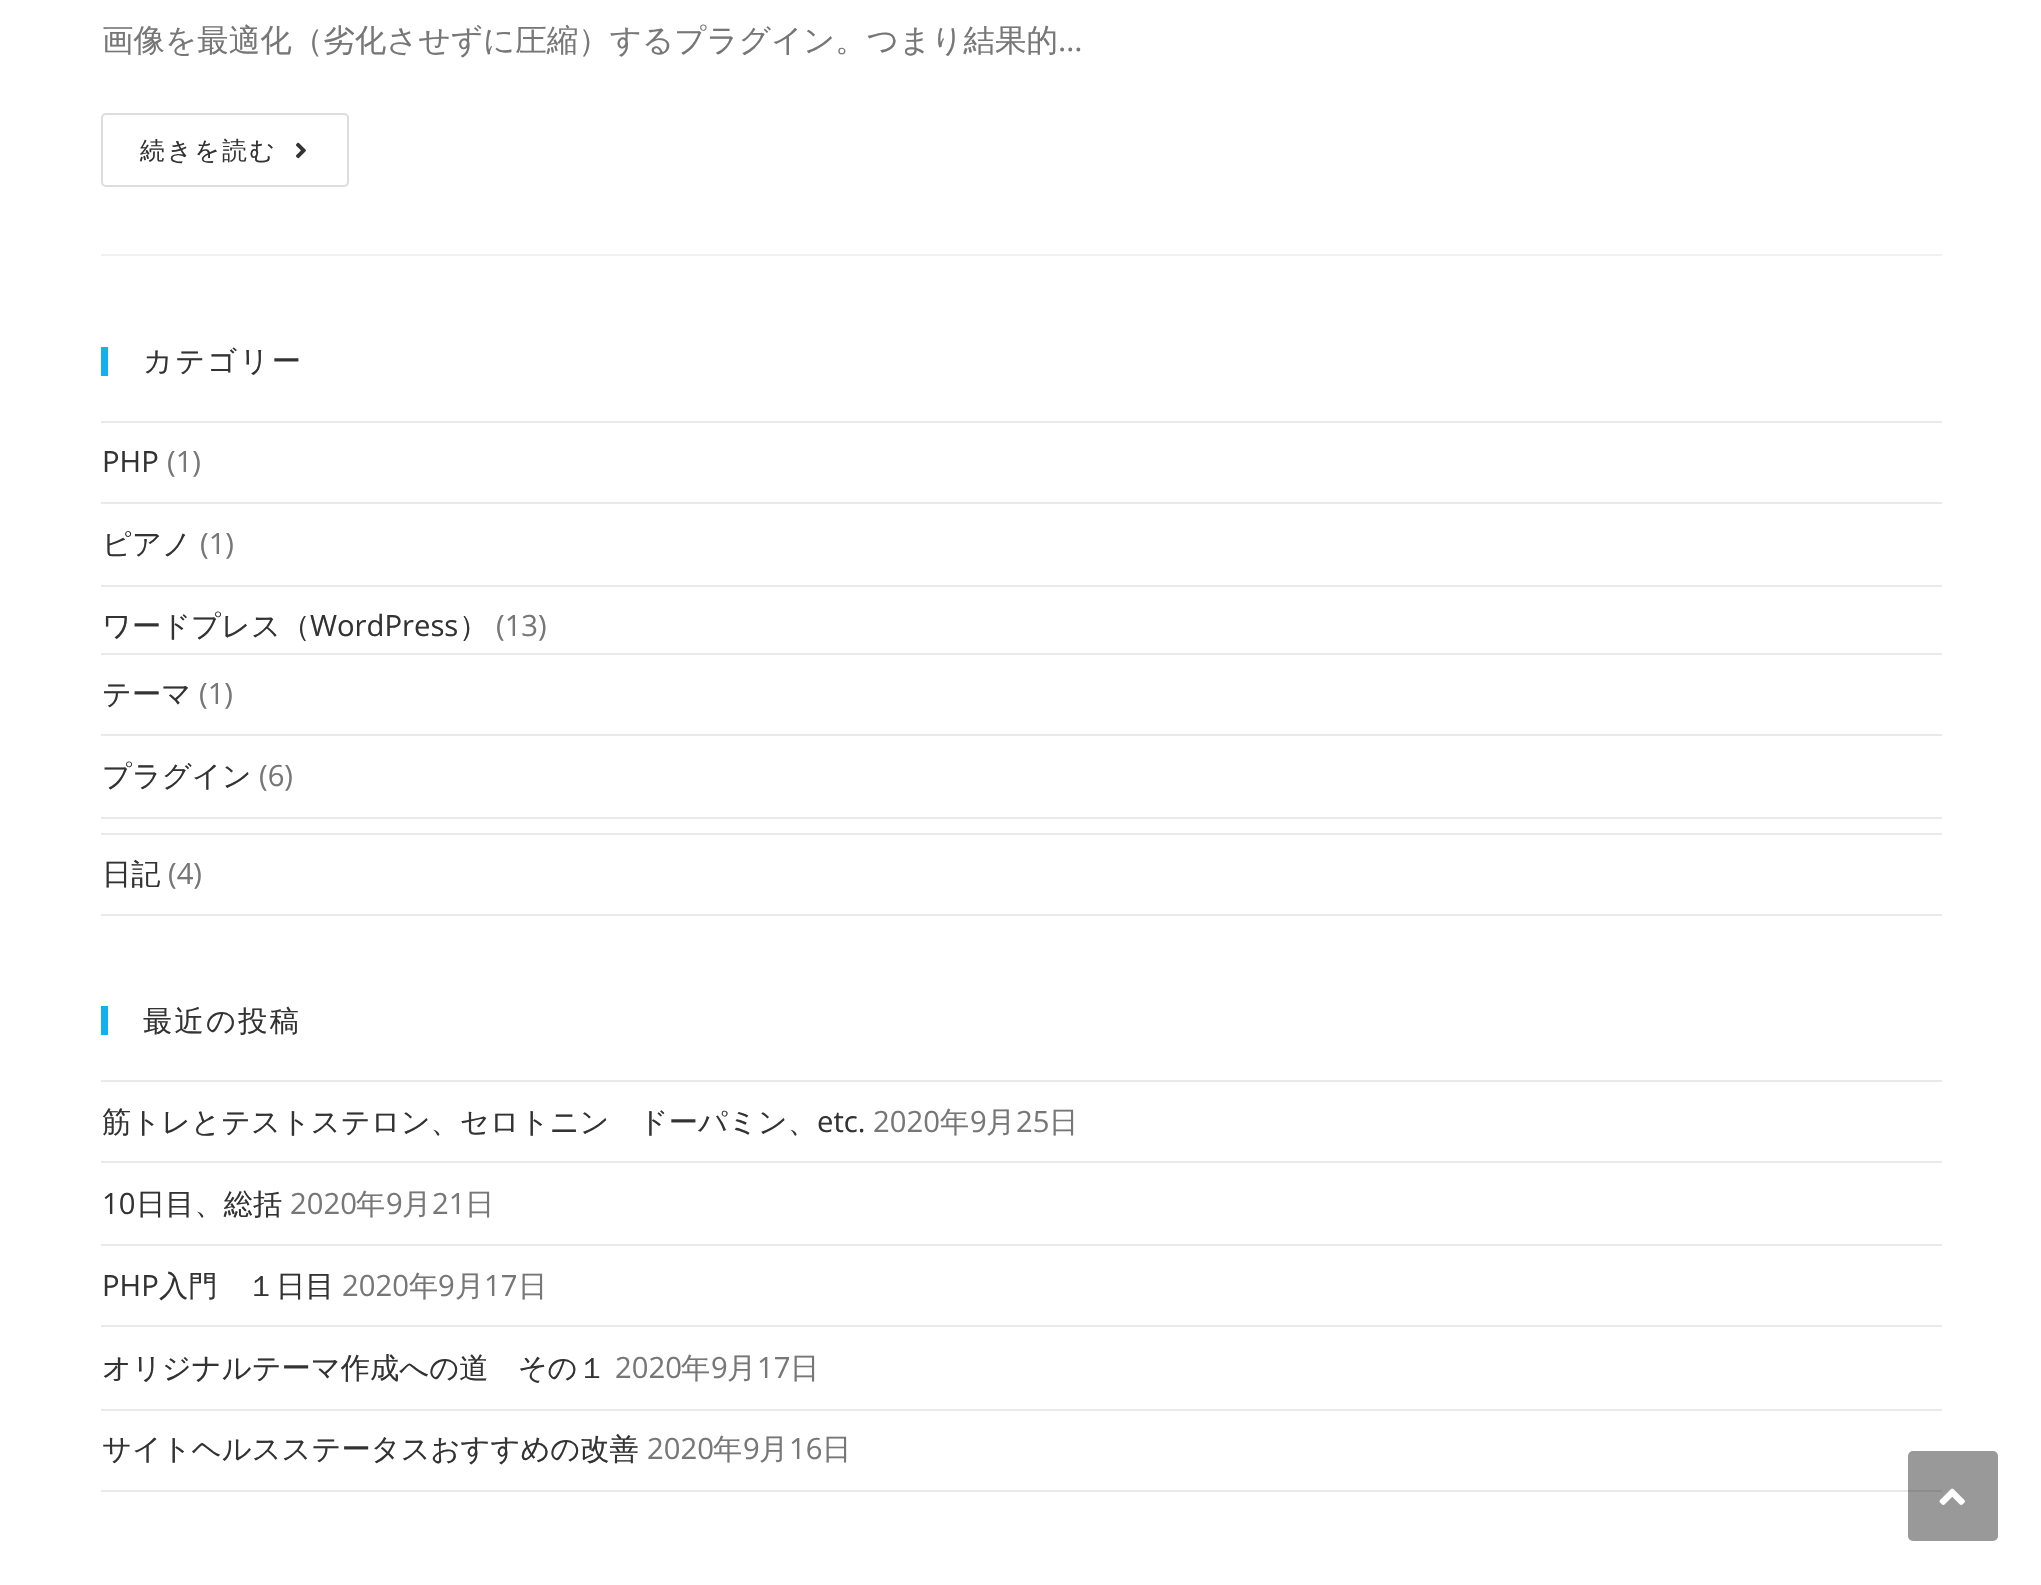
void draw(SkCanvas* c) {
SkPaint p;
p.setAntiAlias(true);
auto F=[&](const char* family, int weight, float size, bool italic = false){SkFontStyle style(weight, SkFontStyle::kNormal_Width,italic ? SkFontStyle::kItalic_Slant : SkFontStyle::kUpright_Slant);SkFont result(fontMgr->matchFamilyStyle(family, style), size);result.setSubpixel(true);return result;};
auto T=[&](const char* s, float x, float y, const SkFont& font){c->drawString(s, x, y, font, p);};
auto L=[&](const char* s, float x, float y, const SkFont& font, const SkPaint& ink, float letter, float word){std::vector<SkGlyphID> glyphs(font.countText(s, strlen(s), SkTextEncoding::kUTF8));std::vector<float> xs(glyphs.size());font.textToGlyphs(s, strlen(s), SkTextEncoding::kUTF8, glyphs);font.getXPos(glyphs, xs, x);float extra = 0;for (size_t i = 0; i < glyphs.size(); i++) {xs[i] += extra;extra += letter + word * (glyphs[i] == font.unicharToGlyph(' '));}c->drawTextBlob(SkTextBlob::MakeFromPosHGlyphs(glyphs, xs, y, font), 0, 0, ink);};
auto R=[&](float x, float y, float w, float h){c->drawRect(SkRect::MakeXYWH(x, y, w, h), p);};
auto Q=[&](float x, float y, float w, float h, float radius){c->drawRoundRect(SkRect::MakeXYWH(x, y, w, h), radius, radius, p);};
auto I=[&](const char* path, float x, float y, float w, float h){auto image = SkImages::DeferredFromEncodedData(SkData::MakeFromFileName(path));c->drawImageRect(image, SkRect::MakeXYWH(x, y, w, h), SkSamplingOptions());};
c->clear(0xffffffff);
p.setColor(0xfff1f1f1);
R(101,254,1841,2);
auto f1 = F("WenQuanYi Zen Hei",500,31.5);
p.setColor(0xff777777);
T("画像を最適化（劣化させずに圧縮）するプラグイン。つまり結果的",102,51,f1);
auto f2 = F("Open Sans",400,31.5);
T("…",1058,51,f2);
p.setStroke(true);
p.setStrokeWidth(2);
p.setColor(0xffdddddd);
c->drawRoundRect(SkRect::MakeXYWH(102,114,246,72),4,4,p);
auto f3 = F("WenQuanYi Zen Hei",500,24.75);
p.setStroke(false);
p.setColor(0xff333333);
L("続きを読む",140,159,f3,p,2.25,0);
I("1.png",296,142,10,17);
p.setColor(0xff13aff0);
R(101,347,7,29);
auto f4 = F("WenQuanYi Zen Hei",500,29.25);
p.setColor(0xff333333);
L("カテゴリー",143,371,f4,p,2.25,0);
p.setColor(0xffe9e9e9);
R(101,421,1841,2);
R(101,502,1841,2);
auto f5 = F("Open Sans",400,29.25);
p.setColor(0xff333333);
T("PHP",102,472,f5);
p.setColor(0xff777777);
T("(1)",167,472,f5);
p.setColor(0xffe9e9e9);
R(101,585,1841,2);
p.setColor(0xff333333);
T("ピアノ",102,554,f4);
p.setColor(0xff777777);
T("(1)",200,554,f5);
p.setColor(0xffe9e9e9);
R(101,833,1841,2);
p.setColor(0xff333333);
T("ワードプレス（",102,636,f4);
T("WordPress",310,636,f5);
p.setColor(0xff777777);
T("(13)",496,636,f5);
p.setColor(0xffe9e9e9);
R(101,653,1841,2);
R(101,734,1841,2);
p.setColor(0xff333333);
T("テーマ",102,704,f4);
p.setColor(0xff777777);
T("(1)",199,704,f5);
p.setColor(0xffe9e9e9);
R(101,817,1841,2);
p.setColor(0xff333333);
T("プラグイン",102,786,f4);
p.setColor(0xff777777);
T("(6)",259,786,f5);
p.setColor(0xff333333);
T("）",459,636,f4);
p.setColor(0xffe9e9e9);
R(101,914,1841,2);
p.setColor(0xff333333);
T("日記",102,884,f4);
p.setColor(0xff777777);
T("(4)",168,884,f5);
p.setColor(0xff13aff0);
R(101,1006,7,29);
p.setColor(0xff333333);
L("最近の投稿",143,1031,f4,p,2.25,0);
p.setColor(0xffe9e9e9);
R(101,1080,1841,2);
R(101,1161,1841,2);
p.setColor(0xff333333);
T("筋トレとテストステロン、セロトニン　ドーパミン、",102,1132,f4);
T("etc.",817,1132,f5);
p.setColor(0xff777777);
T("2020",873,1132,f5);
T("年",940,1132,f4);
T("9",970,1132,f5);
T("月",986,1132,f4);
T("25",1016,1132,f5);
T("日",1049,1132,f4);
p.setColor(0xffe9e9e9);
R(101,1244,1841,2);
p.setColor(0xff333333);
T("10",102,1214,f5);
T("日目、総括",136,1214,f4);
p.setColor(0xff777777);
T("2020",290,1214,f5);
T("年",356,1214,f4);
T("9",386,1214,f5);
T("月",402,1214,f4);
T("21",432,1214,f5);
T("日",465,1214,f4);
p.setColor(0xffe9e9e9);
R(101,1325,1841,2);
p.setColor(0xff333333);
T("PHP",102,1296,f5);
T("入門　１日目",159,1296,f4);
p.setColor(0xff777777);
T("2020",342,1296,f5);
T("年",409,1296,f4);
T("9",438,1296,f5);
T("月",455,1296,f4);
T("17",484,1296,f5);
T("日",518,1296,f4);
p.setColor(0xffe9e9e9);
R(101,1409,1841,2);
p.setColor(0xff333333);
T("オリジナルテーマ作成への道　その１",102,1378,f4);
p.setColor(0xff777777);
T("2020",615,1378,f5);
T("年",681,1378,f4);
T("9",711,1378,f5);
T("月",727,1378,f4);
T("17",757,1378,f5);
T("日",790,1378,f4);
p.setColor(0xffe9e9e9);
R(101,1490,1841,2);
p.setColor(0xff333333);
T("サイトヘルスステータスおすすめの改善",102,1459,f4);
p.setColor(0xff777777);
T("2020",647,1459,f5);
T("年",713,1459,f4);
T("9",743,1459,f5);
T("月",759,1459,f4);
T("16",789,1459,f5);
T("日",822,1459,f4);
p.setColor(0x66000000);
Q(1908,1451,90,90,5);
I("2.png",1939,1488,26,17);
}
